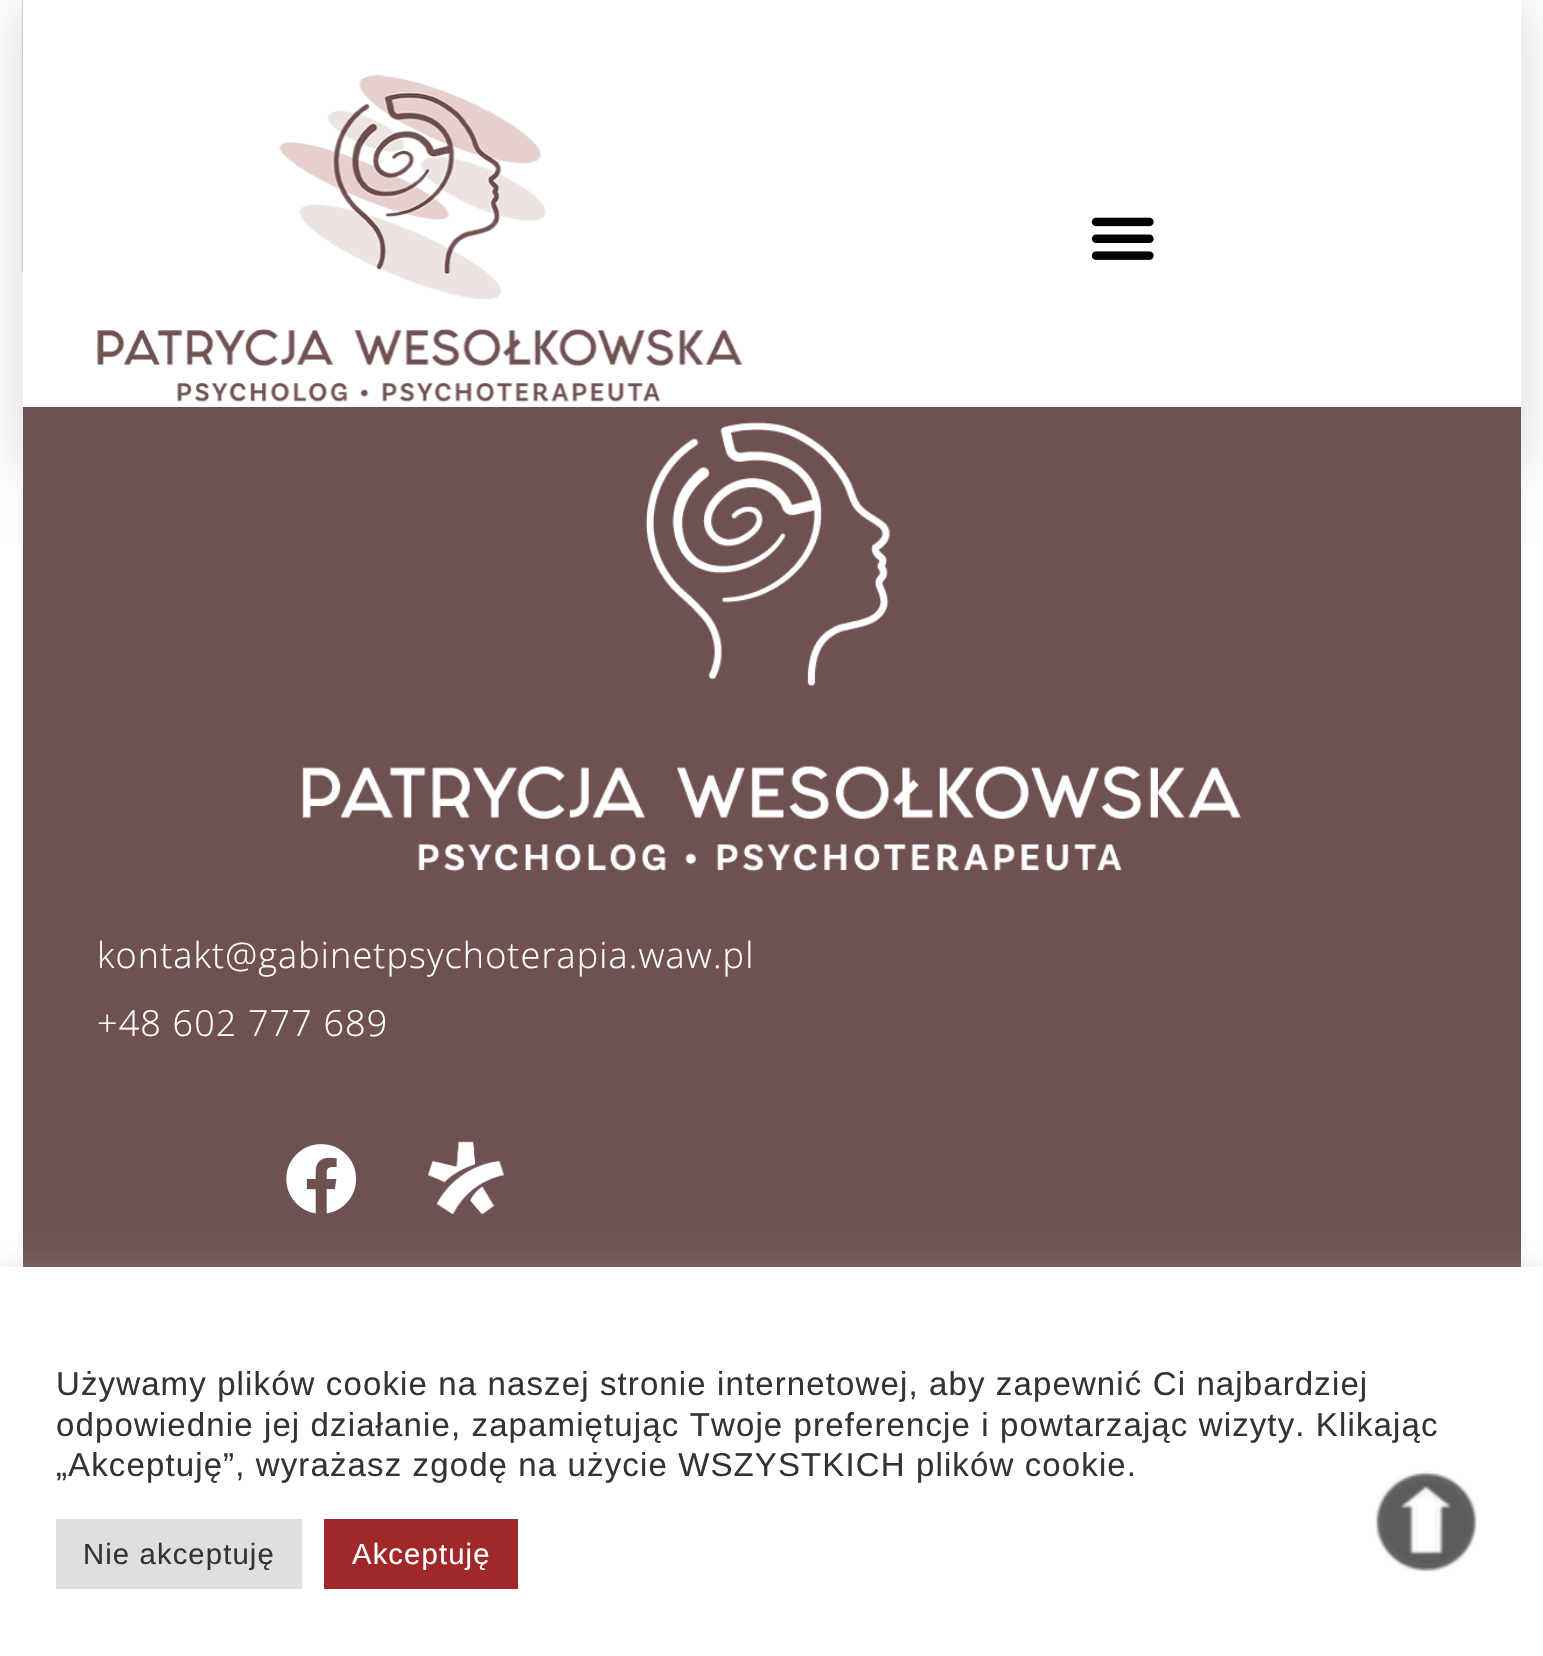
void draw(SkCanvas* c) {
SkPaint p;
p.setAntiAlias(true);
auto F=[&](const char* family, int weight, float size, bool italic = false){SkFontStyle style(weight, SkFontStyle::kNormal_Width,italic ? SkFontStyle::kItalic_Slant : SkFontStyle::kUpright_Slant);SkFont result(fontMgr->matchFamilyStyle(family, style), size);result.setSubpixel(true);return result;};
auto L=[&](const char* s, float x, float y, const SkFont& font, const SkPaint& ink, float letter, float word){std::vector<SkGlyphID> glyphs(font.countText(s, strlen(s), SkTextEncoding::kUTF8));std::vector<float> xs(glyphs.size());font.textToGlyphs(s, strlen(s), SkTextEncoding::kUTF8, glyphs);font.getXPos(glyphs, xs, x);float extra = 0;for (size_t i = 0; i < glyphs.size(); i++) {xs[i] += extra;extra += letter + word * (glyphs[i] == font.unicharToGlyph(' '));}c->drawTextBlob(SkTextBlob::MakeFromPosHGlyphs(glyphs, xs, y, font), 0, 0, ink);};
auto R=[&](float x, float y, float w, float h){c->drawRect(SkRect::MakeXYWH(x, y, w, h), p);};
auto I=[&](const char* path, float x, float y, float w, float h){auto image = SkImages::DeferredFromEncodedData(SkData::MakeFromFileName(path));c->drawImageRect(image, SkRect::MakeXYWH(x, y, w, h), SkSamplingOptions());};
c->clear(0xffffffff);
I("3.png",22,0,1,272);
p.setColor(0x26000000);
p.setMaskFilter(SkMaskFilter::MakeBlur(kNormal_SkBlurStyle, 27));
c->drawRect(SkRect::MakeXYWH(23,0,1498,477),p);
p.setMaskFilter(nullptr);
p.setColor(0xffffffff);
R(23,0,1498,407);
I("1.png",97,74,646,328);
I("2.png",1091,217,63,43);
p.setColor(0xff705151);
R(23,407,1498,860);
I("4.png",302,422,939,450);
auto f1 = F("Open Sans",300,36);
p.setColor(0xffffffff);
L("kontakt@gabinetpsychoterapia.waw.pl",97,968,f1,p,1.12,0);
L("+48 602 777 689",97,1036,f1,p,1.12,0);
I("5.png",286,1144,71,70);
I("6.png",428,1141,77,74);
p.setColor(0x4dacabab);
p.setMaskFilter(SkMaskFilter::MakeBlur(kNormal_SkBlurStyle, 11));
c->drawRect(SkRect::MakeXYWH(0,1265,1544,389),p);
p.setMaskFilter(nullptr);
p.setColor(0xffffffff);
R(0,1267,1543,389);
auto f2 = F("Liberation Sans",400,33);
p.setColor(0xff333333);
L("Używamy plików cookie na naszej stronie internetowej, aby zapewnić Ci najbardziej",56,1395,f2,p,1.12,0);
L("odpowiednie jej działanie, zapamiętując Twoje preferencje i powtarzając wizyty. Klikając",56,1436,f2,p,1.12,0);
L("„Akceptuję”, wyrażasz zgodę na użycie WSZYSTKICH plików cookie.",56,1476,f2,p,1.12,0);
p.setColor(0xffdedfe0);
R(56,1519,246,70);
auto f3 = F("Liberation Sans",400,29.25);
p.setColor(0xff333333);
L("Nie akceptuję",83,1564,f3,p,1.12,0);
p.setColor(0xffa02828);
R(324,1519,194,70);
p.setColor(0xffffffff);
L("Akceptuję",352,1564,f3,p,1.12,0);
I("7.png",1374,1471,103,101);
}
